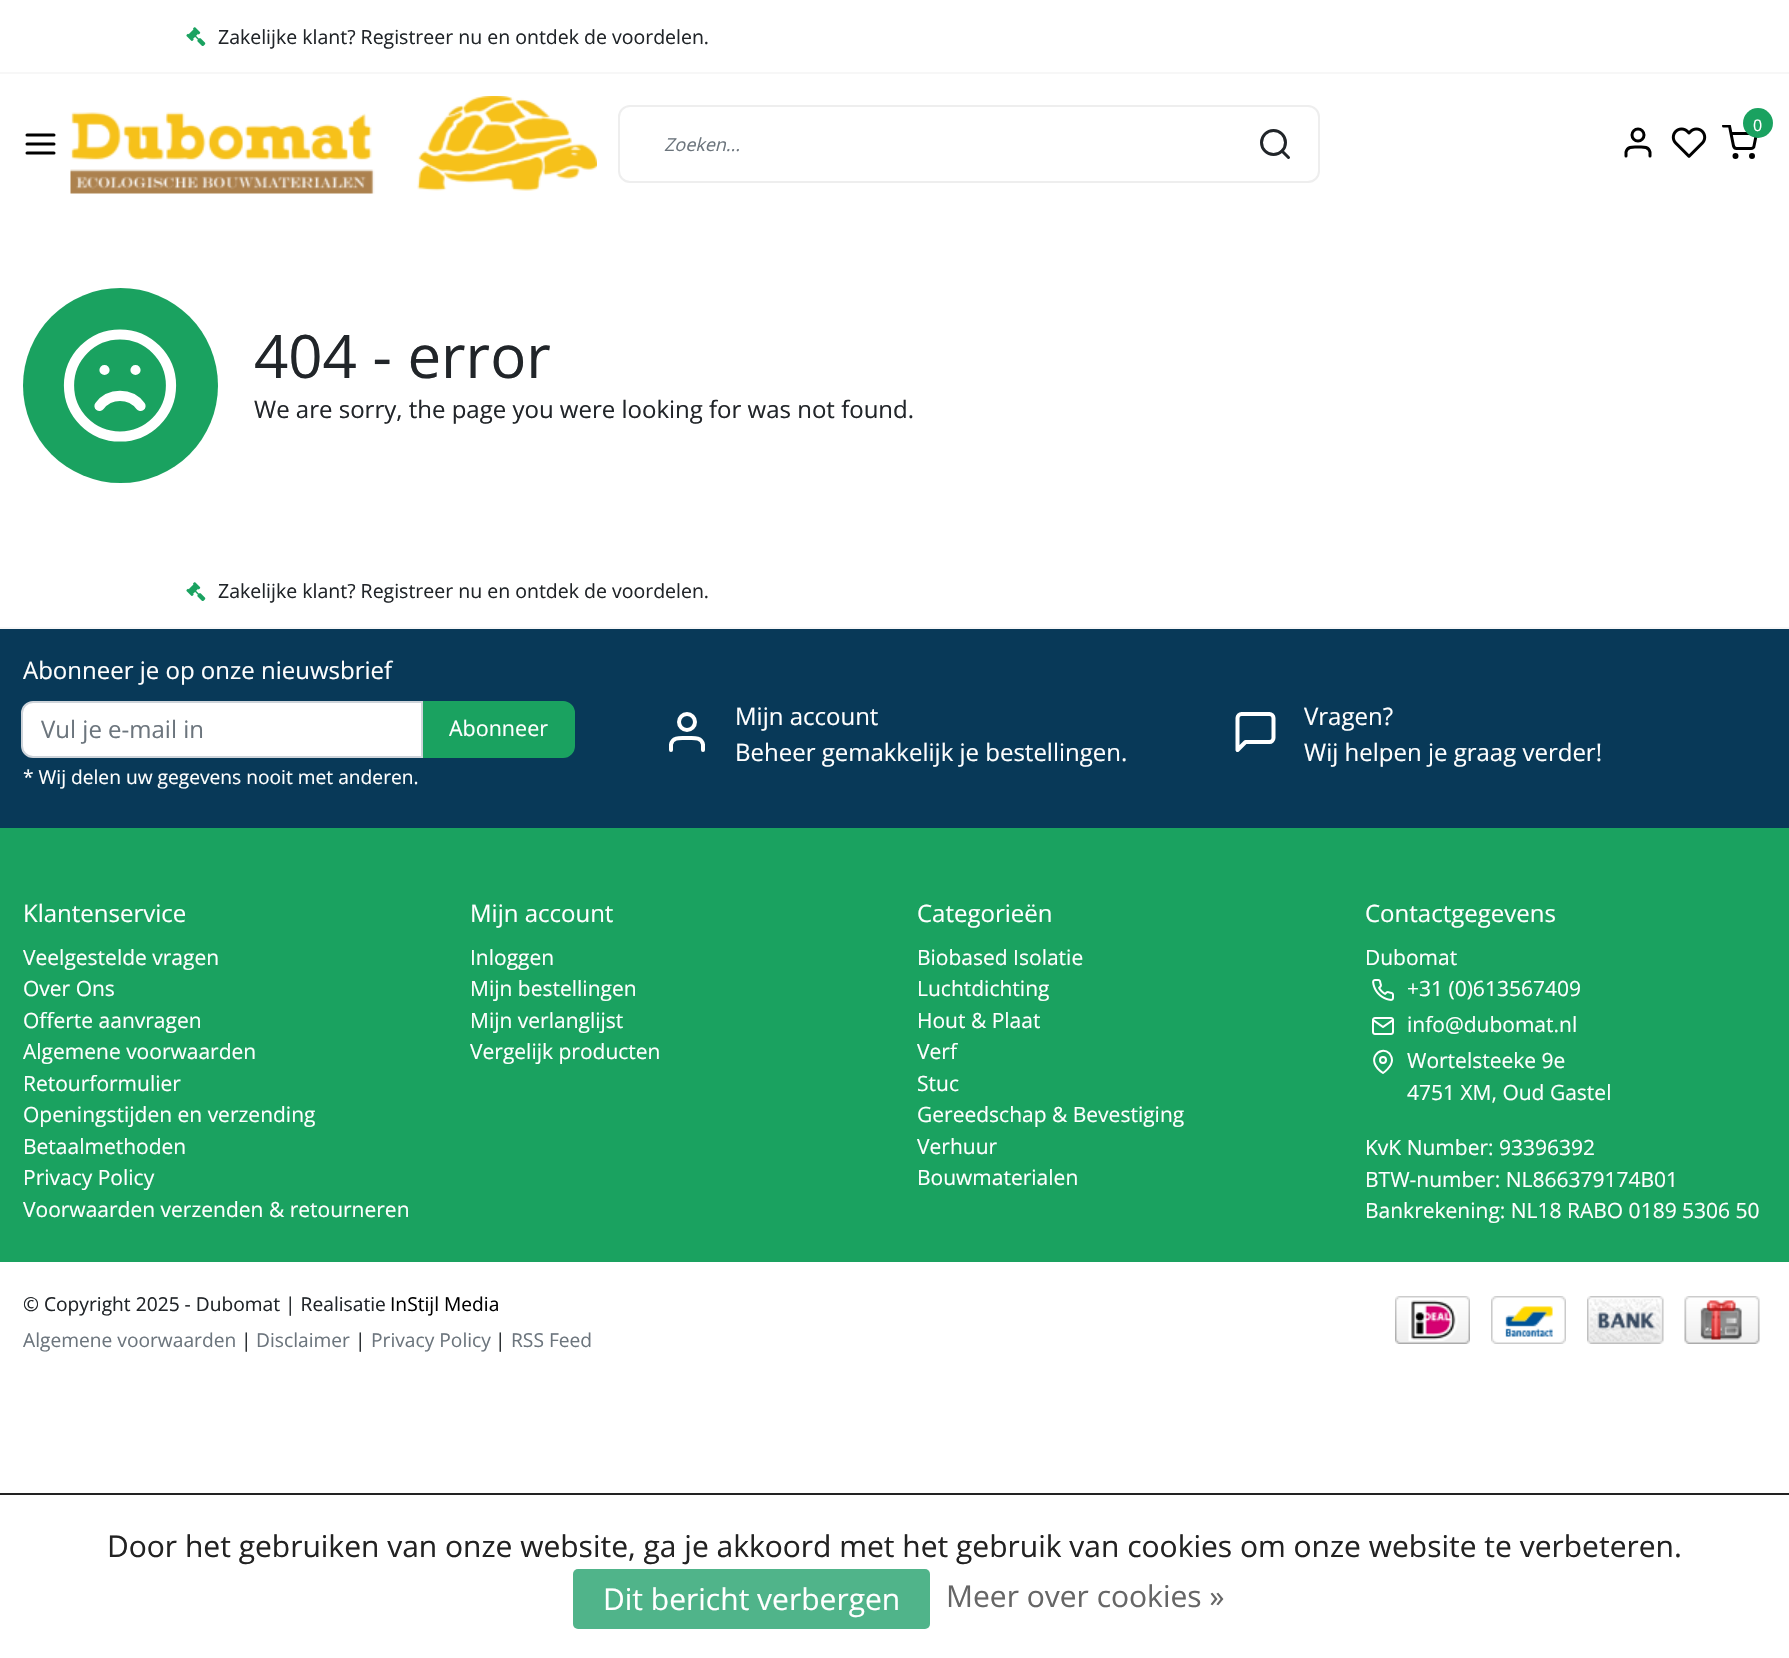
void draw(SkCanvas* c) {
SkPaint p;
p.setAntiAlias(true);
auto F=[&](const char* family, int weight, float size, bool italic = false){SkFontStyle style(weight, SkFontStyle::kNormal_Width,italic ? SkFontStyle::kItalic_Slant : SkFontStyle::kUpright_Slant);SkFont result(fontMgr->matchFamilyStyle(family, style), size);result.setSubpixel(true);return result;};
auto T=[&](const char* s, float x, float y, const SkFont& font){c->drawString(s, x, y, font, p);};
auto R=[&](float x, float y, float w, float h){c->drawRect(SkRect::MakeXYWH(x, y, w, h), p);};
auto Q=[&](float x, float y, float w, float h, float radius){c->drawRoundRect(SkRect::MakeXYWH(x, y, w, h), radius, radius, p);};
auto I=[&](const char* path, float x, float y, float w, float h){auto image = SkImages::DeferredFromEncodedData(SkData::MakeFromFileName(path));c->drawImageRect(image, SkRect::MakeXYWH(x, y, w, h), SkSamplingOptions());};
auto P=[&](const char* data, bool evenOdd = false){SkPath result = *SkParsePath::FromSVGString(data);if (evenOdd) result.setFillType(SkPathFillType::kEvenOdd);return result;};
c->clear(0xffffffff);
p.setColor(0xfff7f7f7);
R(0,72,1789,2);
I("1.png",186,27,20,19);
auto f1 = F("Open Sans",400,19.5);
p.setColor(0xff212529);
T("Zakelijke klant? Registreer nu en ontdek de voordelen.",218,44,f1);
p.setStroke(true);
p.setStrokeWidth(3);
p.setStrokeCap(SkPaint::kRound_Cap);
p.setStrokeJoin(SkPaint::kRound_Join);
p.setColor(0xff000000);
c->drawPath(P("M27 144h27m-27-9h27m-27 18h27"),p);
I("2.png",70,96,527,98);
c->save();
c->clipRect(SkRect::MakeXYWH(1722,125,36,36));
c->drawPath(P("M1723.5 126h6l4 20c.5 1.5 1.5 2.5 3 2.5h14.5c1.5 0 3-1 3-2.5l2.5-12.5h-25.5"),p);
c->restore();
p.setStroke(false);
p.setColor(0xff1aa260);
c->drawCircle(1758,123,15,p);
auto f2 = F("Open Sans",400,16);
p.setColor(0xffffffff);
T("0",1753,131,f2);
p.setStroke(true);
p.setStrokeCap(SkPaint::kButt_Cap);
p.setStrokeJoin(SkPaint::kMiter_Join);
p.setColor(0xff000000);
c->drawCircle(1735.5,156,1.5,p);
c->drawCircle(1752,156,1.5,p);
p.setStrokeCap(SkPaint::kRound_Cap);
p.setStrokeJoin(SkPaint::kRound_Join);
c->drawPath(P("M1650 156v-4c-1.5-6-7.5-5-12-5c-4.5 0-10.5-1-12 5v4"),p);
p.setStrokeCap(SkPaint::kButt_Cap);
p.setStrokeJoin(SkPaint::kMiter_Join);
c->drawCircle(1638,135,6,p);
I("3.png",1671,127,36,31);
p.setStrokeWidth(2);
p.setColor(0xffeeeeee);
c->drawRoundRect(SkRect::MakeXYWH(619,106,700,76),11,11,p);
auto f3 = F("Open Sans",400,18,true);
p.setStroke(false);
p.setColor(0xff6c757d);
T("Zoeken...",664,151,f3);
p.setStroke(true);
p.setStrokeWidth(3);
p.setColor(0xff212529);
c->drawCircle(1273.5,142.5,12,p);
p.setStrokeCap(SkPaint::kRound_Cap);
p.setStrokeJoin(SkPaint::kRound_Join);
c->drawPath(P("M1288.5 157.5l-6.5-6.5"),p);
p.setStroke(false);
p.setColor(0xff1aa260);
c->drawCircle(120.5,385.5,97.5,p);
p.setStroke(true);
p.setStrokeWidth(10.2);
p.setStrokeCap(SkPaint::kButt_Cap);
p.setStrokeJoin(SkPaint::kMiter_Join);
p.setColor(0xffffffff);
c->drawCircle(120,385.5,51,p);
p.setStrokeCap(SkPaint::kRound_Cap);
p.setStrokeJoin(SkPaint::kRound_Join);
c->drawPath(P("M140.5 406c-10-13.5-31-13.5-41 0m5-36h0m31 0h0"),p);
auto f4 = F("Open Sans",400,60);
p.setStroke(false);
p.setColor(0xff212529);
T("404 - error",254,378,f4);
auto f5 = F("Open Sans",400,24);
T("We are sorry, the page you were looking for was not found.",254,418,f5);
p.setColor(0xfff7f7f7);
R(0,627,1789,2);
I("1.png",186,582,20,19);
p.setColor(0xff212529);
T("Zakelijke klant? Registreer nu en ontdek de voordelen.",218,598,f1);
p.setColor(0xff083958);
R(0,629,1789,199);
p.setColor(0xffffffff);
T("Abonneer je op onze nieuwsbrief",23,679,f5);
c->drawPath(P("M33 702h389v55h-389c-6 0-11-5-11-11v-33c0-6 5-11 11-11z"),p);
p.setStroke(true);
p.setStrokeWidth(2);
p.setStrokeCap(SkPaint::kButt_Cap);
p.setStrokeJoin(SkPaint::kMiter_Join);
p.setColor(0xffced4da);
c->drawPath(P("M33 702h389v55h-389c-6 0-11-5-11-11v-33c0-6 5-11 11-11z"),p);
p.setStroke(false);
p.setColor(0xff6c757d);
T("Vul je e-mail in",41,738,f5);
p.setColor(0xff1aa260);
c->drawPath(P("M424 702h139c6 0 11 5 11 11v33c0 6-5 11-11 11h-139z"),p);
p.setStroke(true);
c->drawPath(P("M424 702h139c6 0 11 5 11 11v33c0 6-5 11-11 11h-139z"),p);
auto f6 = F("Open Sans",400,21.5);
p.setStroke(false);
p.setColor(0xffffffff);
T("Abonneer",449,736,f6);
auto f7 = F("Open Sans",400,19.2);
T("* Wij delen uw gegevens nooit met anderen.",23,784,f7);
p.setStroke(true);
p.setStrokeWidth(4);
p.setStrokeCap(SkPaint::kRound_Cap);
p.setStrokeJoin(SkPaint::kRound_Join);
c->drawPath(P("M703 750v-5.5c-1.5-8-10-6.5-16-6.5c-6 0-14.5-1.5-16 6.5v5.5"),p);
p.setStrokeCap(SkPaint::kButt_Cap);
p.setStrokeJoin(SkPaint::kMiter_Join);
c->drawCircle(687,722,8,p);
p.setStroke(false);
T("Mijn account",735,725,f5);
T("Beheer gemakkelijk je bestellingen.",735,761,f5);
p.setStroke(true);
p.setStrokeCap(SkPaint::kRound_Cap);
p.setStrokeJoin(SkPaint::kRound_Join);
c->drawPath(P("M1273.5 738c0 2-2 4-4 4h-24l-8 8v-32c0-2 2-4 4-4h28c2 0 4 2 4 4z"),p);
p.setStroke(false);
T("Vragen?",1304,725,f5);
T("Wij helpen je graag verder!",1304,761,f5);
p.setColor(0xff1aa260);
R(0,828,1789,434);
p.setColor(0xffffffff);
T("Klantenservice",23,922,f5);
auto f8 = F("Open Sans",400,21);
T("Veelgestelde vragen",23,965,f8);
T("Over Ons",23,996,f8);
T("Offerte aanvragen",23,1028,f8);
T("Algemene voorwaarden",23,1059,f8);
T("Retourformulier",23,1091,f8);
T("Openingstijden en verzending",23,1122,f8);
T("Betaalmethoden",23,1154,f8);
T("Privacy Policy",23,1185,f8);
T("Voorwaarden verzenden & retourneren",23,1217,f8);
T("Mijn account",470,922,f5);
T("Inloggen",470,965,f8);
T("Mijn bestellingen",470,996,f8);
T("Mijn verlanglijst",470,1028,f8);
T("Vergelijk producten",470,1059,f8);
T("Categorieën",917,922,f5);
T("Biobased Isolatie",917,965,f8);
T("Luchtdichting",917,996,f8);
T("Hout & Plaat",917,1028,f8);
T("Verf",917,1059,f8);
T("Stuc",917,1091,f8);
T("Gereedschap & Bevestiging",917,1122,f8);
T("Verhuur",917,1154,f8);
T("Bouwmaterialen",917,1185,f8);
T("Contactgegevens",1365,922,f5);
T("Dubomat",1365,965,f8);
I("4.png",1372,979,22,22);
T("+31 (0)613567409",1407,996,f8);
I("5.png",1372,1017,22,18);
T("info@dubomat.nl",1407,1032,f8);
p.setStroke(true);
p.setStrokeWidth(2);
c->drawPath(P("M1392 1060c0 7-9 13-9 13c-19-12.5-3-28.5 6.5-19.5c1.5 2 2.5 4 2.5 6.5z"),p);
p.setStrokeCap(SkPaint::kButt_Cap);
p.setStrokeJoin(SkPaint::kMiter_Join);
c->drawCircle(1383,1060,3,p);
p.setStroke(false);
T("Wortelsteeke 9e",1407,1068,f8);
T("4751 XM, Oud Gastel",1407,1100,f8);
T("KvK Number: 93396392",1365,1155,f8);
T("BTW-number: NL866379174B01",1365,1187,f8);
T("Bankrekening: NL18 RABO 0189 5306 50",1365,1218,f8);
p.setColor(0xff212529);
T("© Copyright 2025 - Dubomat | Realisatie",23,1311,f7);
p.setColor(0xff000000);
T("InStijl Media",390,1311,f7);
p.setColor(0xff6c757d);
T("Algemene voorwaarden",23,1347,f7);
p.setColor(0xff212529);
T("|",241,1347,f7);
p.setColor(0xff6c757d);
T("Disclaimer",256,1347,f7);
p.setColor(0xff212529);
T("|",355,1347,f7);
p.setColor(0xff6c757d);
T("Privacy Policy",371,1347,f7);
p.setColor(0xff212529);
T("|",495,1347,f7);
p.setColor(0xff6c757d);
T("RSS Feed",511,1347,f7);
I("6.png",1395,1296,75,48);
I("7.png",1491,1296,75,48);
I("8.png",1587,1296,77,48);
I("9.png",1684,1296,76,48);
p.setColor(0xff222222);
R(0,1493,1789,2);
auto f9 = F("Open Sans",400,30);
T("Door het gebruiken van onze website, ga je akkoord met het gebruik van cookies om onze website te verbeteren.",107,1557,f9);
p.setColor(0xff50b48a);
Q(573,1569,357,60,5);
p.setColor(0xffffffff);
T("Dit bericht verbergen",603,1610,f9);
p.setColor(0xff666666);
T("Meer over cookies »",946,1607,f9);
}
